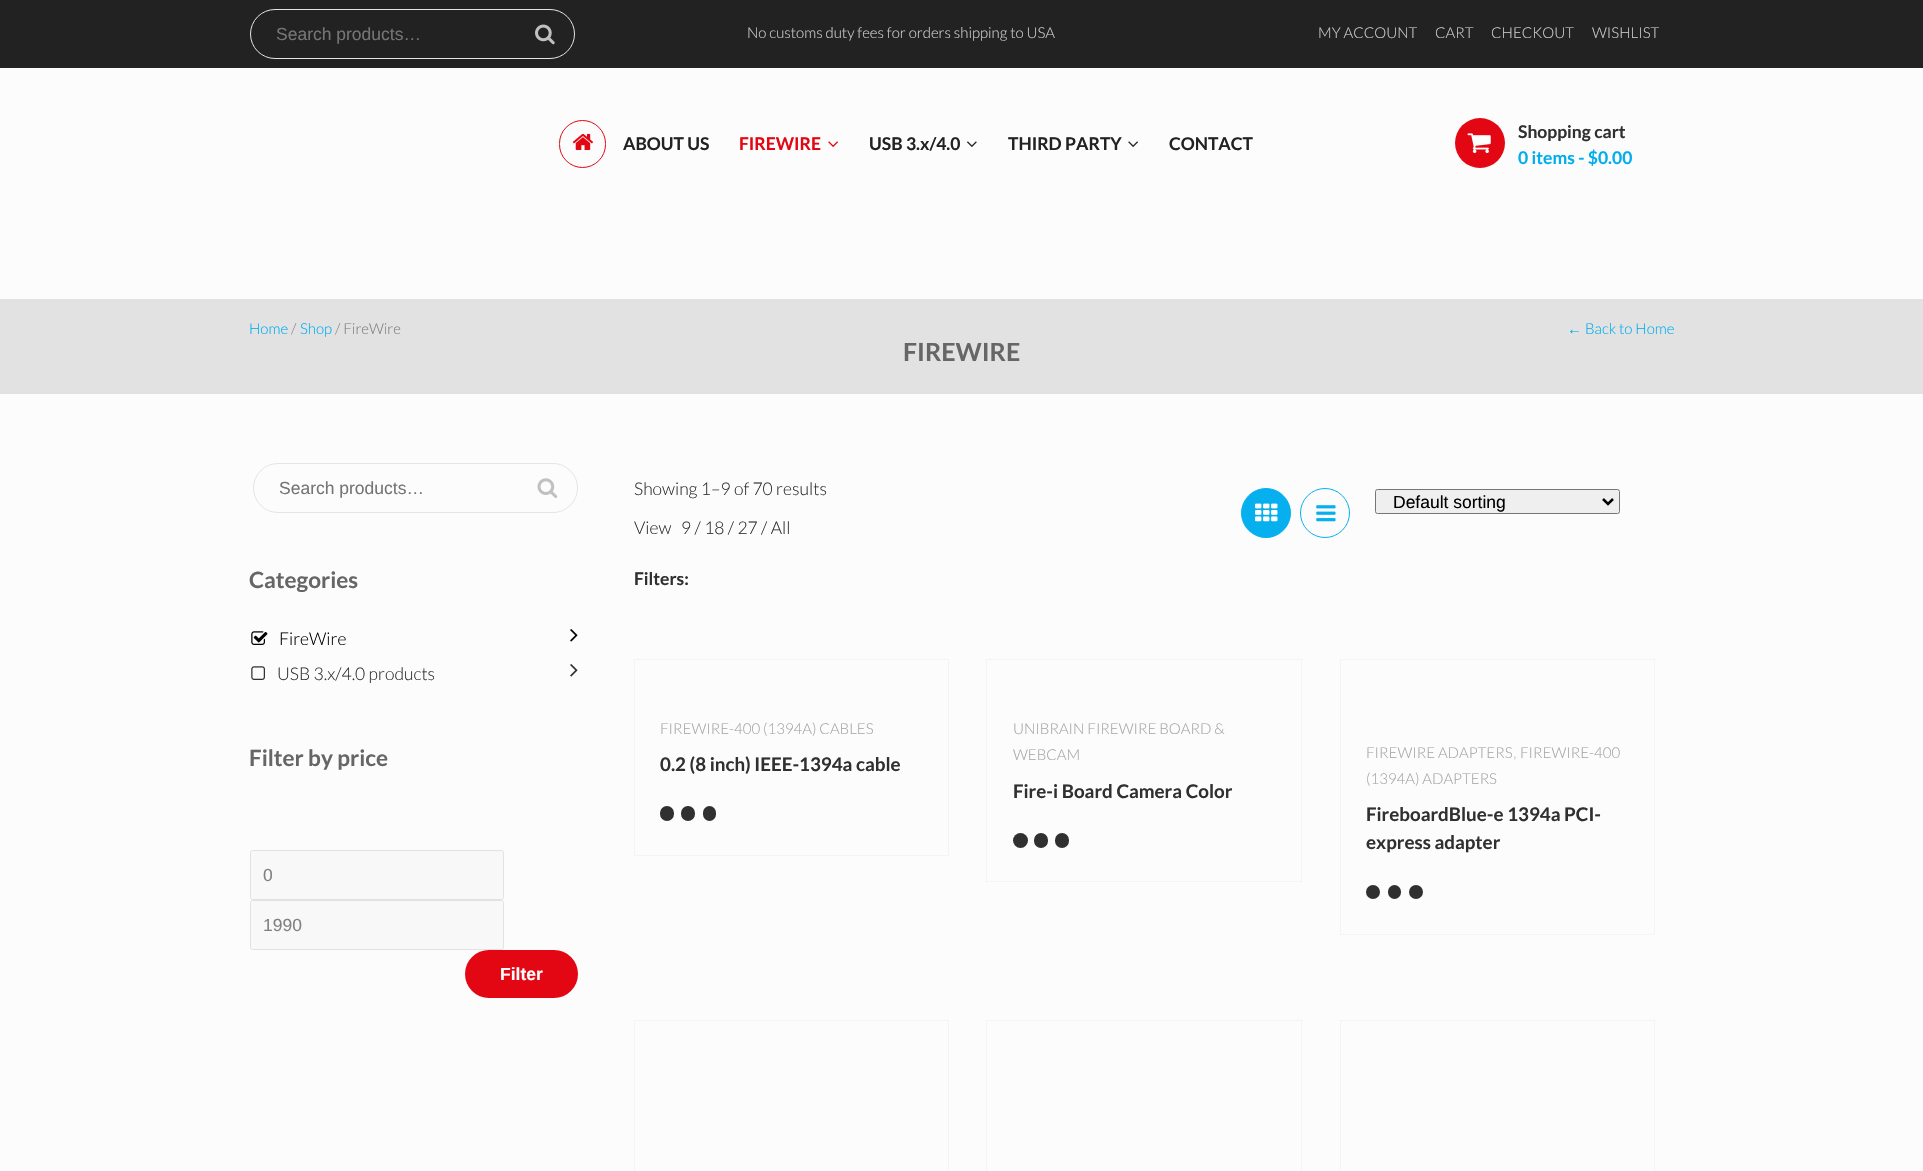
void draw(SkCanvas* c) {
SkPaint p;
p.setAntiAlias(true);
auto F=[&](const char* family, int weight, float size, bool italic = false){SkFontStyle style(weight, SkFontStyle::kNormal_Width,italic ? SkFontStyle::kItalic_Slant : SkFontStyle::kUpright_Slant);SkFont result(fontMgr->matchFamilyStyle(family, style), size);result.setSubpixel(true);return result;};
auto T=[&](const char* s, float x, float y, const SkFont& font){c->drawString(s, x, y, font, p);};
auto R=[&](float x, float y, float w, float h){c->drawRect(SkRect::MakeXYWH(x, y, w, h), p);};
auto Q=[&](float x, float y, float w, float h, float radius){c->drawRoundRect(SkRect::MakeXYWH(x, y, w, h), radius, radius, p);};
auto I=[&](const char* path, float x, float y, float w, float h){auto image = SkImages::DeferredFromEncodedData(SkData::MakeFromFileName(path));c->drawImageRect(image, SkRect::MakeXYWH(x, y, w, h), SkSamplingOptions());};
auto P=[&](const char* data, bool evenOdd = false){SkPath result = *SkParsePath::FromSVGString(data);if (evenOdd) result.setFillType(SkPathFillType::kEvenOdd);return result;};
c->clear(0xfffcfcfc);
p.setColor(0xff222222);
R(0,0,1923,68);
p.setStroke(true);
p.setStrokeWidth(1);
p.setColor(0xffe0e5eb);
c->drawRoundRect(SkRect::MakeXYWH(250.5,9.5,324,49),24.5,24.5,p);
auto f1 = F("Liberation Sans",400,17.5);
p.setStroke(false);
p.setColor(0xff757575);
T("Search products…",276,40,f1);
I("1.png",535,24,20,21);
auto f2 = F("Lato",300,15);
p.setColor(0xffcccccc);
T("No customs duty fees for orders shipping to USA",747,38,f2);
T("MY ACCOUNT",1318,38,f2);
T("CART",1435,38,f2);
T("CHECKOUT",1491,38,f2);
T("WISHLIST",1592,38,f2);
p.setStroke(true);
p.setColor(0xffe30613);
c->drawRoundRect(SkRect::MakeXYWH(559.5,120.5,46,47),23,23,p);
I("2.png",572,133,21,17);
auto f3 = F("Lato",700,17.5);
p.setStroke(false);
p.setColor(0xff222222);
T("ABOUT US",623,150,f3);
p.setColor(0xffe30613);
T("FIREWIRE",739,150,f3);
I("3.png",828,141,10,6);
p.setColor(0xff222222);
T("USB 3.x/4.0",869,150,f3);
I("4.png",967,141,10,6);
T("THIRD PARTY",1008,150,f3);
I("5.png",1128,141,10,6);
T("CONTACT",1169,150,f3);
p.setColor(0xffe30613);
c->drawCircle(1480,143,25,p);
I("6.png",1467,133,24,20);
p.setColor(0xff303030);
T("Shopping cart",1518,138,f3);
p.setColor(0xff00aeef);
T("0 items - $0.00",1518,164,f3);
p.setColor(0xffe2e2e2);
R(0,299,1923,95);
p.setColor(0xff00aeef);
T("Home",249,334,f2);
p.setColor(0xff818181);
T("/",291,334,f2);
p.setColor(0xff00aeef);
T("Shop",300,334,f2);
p.setColor(0xff818181);
T("/ FireWire",335,334,f2);
auto f4 = F("Liberation Sans",400,15);
p.setColor(0xff00aeef);
T("←",1567,334,f4);
T("Back to Home",1585,334,f2);
auto f5 = F("Lato",700,25);
p.setColor(0xff666666);
T("FIREWIRE",903,361,f5);
p.setStroke(true);
p.setColor(0xffe0e5eb);
c->drawRoundRect(SkRect::MakeXYWH(253.5,463.5,324,49),24.5,24.5,p);
p.setStroke(false);
p.setColor(0xff757575);
T("Search products…",279,494,f1);
I("7.png",537,478,21,20);
auto f6 = F("Lato",700,22.5);
p.setColor(0xff666666);
T("Categories",249,588,f6);
I("8.png",251,631,17,14);
auto f7 = F("Lato",300,17.5);
p.setColor(0xff000000);
T("FireWire",279,645,f7);
I("9.png",570,629,8,13);
I("10.png",251,666,14,14);
p.setColor(0xff303030);
T("USB 3.x/4.0 products",277,680,f7);
I("11.png",570,664,8,13);
p.setColor(0xff666666);
T("Filter by price",249,766,f6);
p.setColor(0xfff8f8f8);
c->drawRoundRect(SkRect::MakeXYWH(250.5,850.5,253,49),2,2,p);
p.setStroke(true);
p.setColor(0xffe2e2e2);
c->drawRoundRect(SkRect::MakeXYWH(250.5,850.5,253,49),2,2,p);
p.setStroke(false);
p.setColor(0xff818181);
T("0",263,881,f1);
p.setColor(0xfff8f8f8);
c->drawRoundRect(SkRect::MakeXYWH(250.5,900.5,253,49),2,2,p);
p.setStroke(true);
p.setColor(0xffe2e2e2);
c->drawRoundRect(SkRect::MakeXYWH(250.5,900.5,253,49),2,2,p);
p.setStroke(false);
p.setColor(0xff818181);
T("1990",263,931,f1);
p.setColor(0xffe30613);
Q(465,950,113,48,24);
auto f8 = F("Liberation Sans",700,17.5);
p.setColor(0xffffffff);
T("Filter",500,980,f8);
p.setColor(0xff303030);
T("Showing 1–9 of 70 results",634,495,f7);
T("View",634,534,f7);
T("9 / 18 / 27 / All",681,534,f7);
p.setColor(0xff06b0ef);
c->drawCircle(1266,513,24.5,p);
p.setStroke(true);
c->drawCircle(1266,513,24.5,p);
I("12.png",1255,503,23,19);
c->drawCircle(1325,513,24.5,p);
I("13.png",1316,505,20,17);
p.setStroke(false);
p.setColor(0xffefefef);
Q(1376,490,243,23,1);
p.setStroke(true);
p.setColor(0xff767676);
c->drawRoundRect(SkRect::MakeXYWH(1375.5,489.5,244,24),2,2,p);
p.setStrokeWidth(2.5);
p.setColor(0xff000000);
c->drawPath(P("M1603 499l5 5l5-5"),p);
p.setStroke(false);
T("Default sorting",1393,508,f1);
p.setColor(0xff303030);
T("Filters:",634,585,f3);
p.setColor(0xfff2f5f8);
R(634,659,315,1);
R(948,659,1,197);
R(634,659,1,197);
R(635,855,313,1);
p.setColor(0xffa6a6a7);
T("FIREWIRE-400 (1394A) CABLES",660,734,f2);
auto f9 = F("Lato",700,18.75);
p.setColor(0xff303030);
T("0.2 (8 inch) IEEE-1394a cable",660,771,f9);
Q(681,806,14,15,7);
Q(660,806,14,15,7);
Q(703,806,13,15,6.5);
p.setColor(0xfff2f5f8);
R(986,659,317,1);
R(1301,659,1,224);
R(986,659,1,224);
R(988,881,313,1);
p.setColor(0xffa6a6a7);
T("UNIBRAIN FIREWIRE BOARD &",1013,734,f2);
T("WEBCAM",1013,760,f2);
p.setColor(0xff303030);
T("Fire-i Board Camera Color",1013,798,f9);
Q(1034,833,14,15,7);
c->drawCircle(1020.5,840.5,7.5,p);
Q(1055,833,14,15,7);
p.setColor(0xfff2f5f8);
R(1340,659,315,1);
R(1654,659,1,276);
R(1340,659,1,276);
R(1341,934,313,1);
p.setColor(0xffa6a6a7);
T("FIREWIRE ADAPTERS",1366,758,f2);
p.setColor(0xffcccccc);
T(",",1513,758,f7);
p.setColor(0xffa6a6a7);
T("FIREWIRE-400",1520,758,f2);
T("(1394A) ADAPTERS",1366,784,f2);
p.setColor(0xff303030);
T("FireboardBlue-e 1394a PCI-",1366,821,f9);
T("express adapter",1366,849,f9);
Q(1388,885,13,14,6.5);
c->drawCircle(1373,892,7,p);
c->drawCircle(1416,892,7,p);
p.setColor(0xfff2f5f8);
R(634,1020,315,1);
R(948,1020,1,151);
R(634,1020,1,151);
R(986,1020,317,1);
R(1301,1020,1,151);
R(986,1020,1,151);
R(1340,1020,315,1);
R(1654,1020,1,151);
R(1340,1020,1,151);
}
